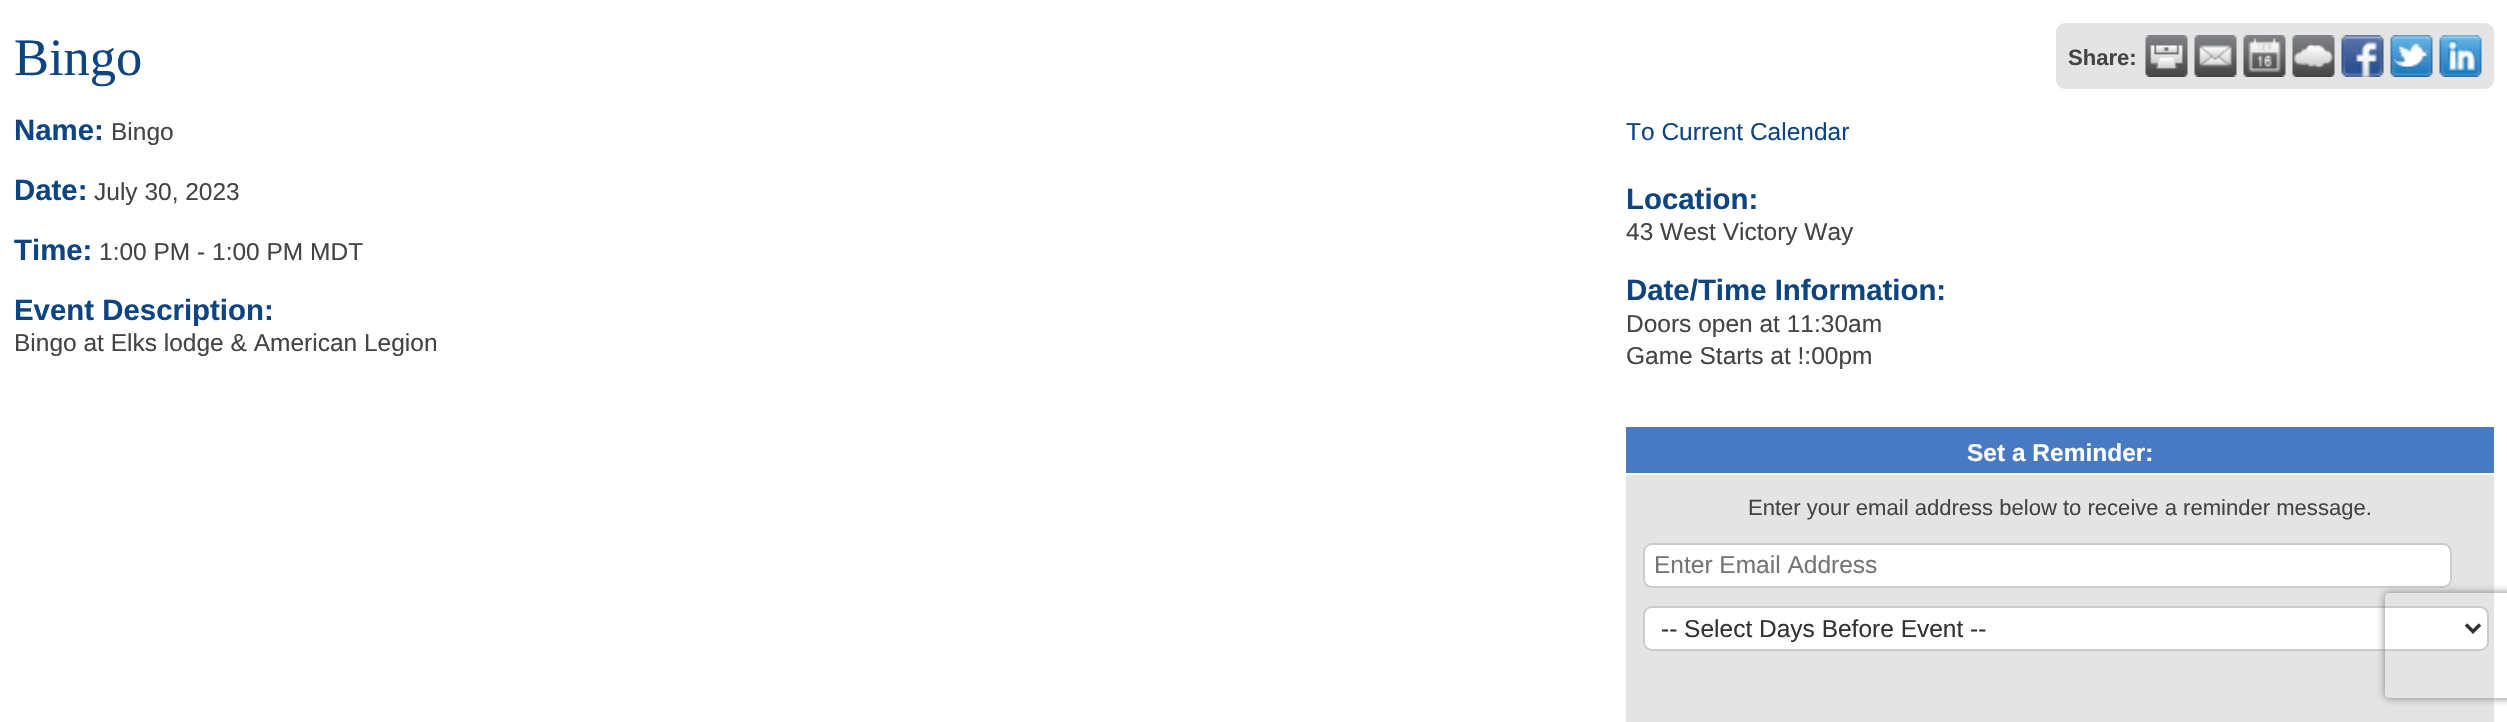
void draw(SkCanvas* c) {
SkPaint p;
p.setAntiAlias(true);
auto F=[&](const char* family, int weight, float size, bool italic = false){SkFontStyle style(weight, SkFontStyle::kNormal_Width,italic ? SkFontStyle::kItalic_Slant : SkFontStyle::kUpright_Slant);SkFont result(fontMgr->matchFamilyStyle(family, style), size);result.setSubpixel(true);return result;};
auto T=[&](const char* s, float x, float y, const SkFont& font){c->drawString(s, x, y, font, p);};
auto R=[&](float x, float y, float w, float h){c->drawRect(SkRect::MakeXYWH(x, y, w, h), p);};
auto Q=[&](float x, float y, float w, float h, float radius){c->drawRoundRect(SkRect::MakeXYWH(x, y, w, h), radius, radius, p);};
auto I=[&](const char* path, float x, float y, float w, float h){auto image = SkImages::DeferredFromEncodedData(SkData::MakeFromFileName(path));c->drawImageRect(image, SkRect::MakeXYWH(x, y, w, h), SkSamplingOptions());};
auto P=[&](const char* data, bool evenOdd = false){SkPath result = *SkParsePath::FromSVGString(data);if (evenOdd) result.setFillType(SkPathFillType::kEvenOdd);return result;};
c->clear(0xffffffff);
auto f1 = F("Liberation Serif",400,52.5);
p.setColor(0xff0d4582);
T("Bingo",14,75,f1);
p.setColor(0xffe4e4e4);
Q(2056,23,438,66,9);
auto f2 = F("Liberation Sans",700,22.05);
p.setColor(0xff444444);
T("Share:",2068,65,f2);
I("1.png",2145,35,43,42);
I("2.png",2194,35,43,42);
I("3.png",2243,35,43,42);
I("4.png",2292,35,43,42);
I("5.png",2341,35,43,42);
I("6.png",2390,35,43,42);
I("7.png",2439,35,43,42);
auto f3 = F("Liberation Sans",700,29.4);
p.setColor(0xff0d4582);
T("Name:",14,140,f3);
auto f4 = F("Liberation Sans",400,24.5);
p.setColor(0xff444444);
T("Bingo",111,140,f4);
p.setColor(0xff0d4582);
T("Date:",14,200,f3);
p.setColor(0xff444444);
T("July 30, 2023",94,200,f4);
p.setColor(0xff0d4582);
T("Time:",14,260,f3);
p.setColor(0xff444444);
T("1:00 PM - 1:00 PM MDT",99,260,f4);
p.setColor(0xff0d4582);
T("Event Description:",14,320,f3);
p.setColor(0xff444444);
T("Bingo at Elks lodge & American Legion",14,351,f4);
p.setColor(0xff0d4582);
T("To Current Calendar",1626,140,f4);
T("Location:",1626,209,f3);
p.setColor(0xff444444);
T("43 West Victory Way",1626,240,f4);
p.setColor(0xff0d4582);
T("Date/Time Information:",1626,300,f3);
p.setColor(0xff444444);
T("Doors open at 11:30am",1626,332,f4);
T("Game Starts at !:00pm",1626,364,f4);
p.setColor(0xffe4e4e4);
R(1626,475,868,247);
p.setColor(0xff477ac2);
R(1626,427,868,46);
auto f5 = F("Liberation Sans",700,24.5);
p.setColor(0xffffffff);
T("Set a Reminder:",1967,461,f5);
auto f6 = F("Liberation Sans",400,22.05);
p.setColor(0xff444444);
T("Enter your email address below to receive a reminder message.",1748,515,f6);
p.setColor(0xffffffff);
c->drawRoundRect(SkRect::MakeXYWH(1644,544,807,43),8,8,p);
p.setStroke(true);
p.setStrokeWidth(2);
p.setColor(0xffcccccc);
c->drawRoundRect(SkRect::MakeXYWH(1644,544,807,43),8,8,p);
p.setStroke(false);
p.setColor(0xff757575);
T("Enter Email Address",1654,573,f4);
p.setColor(0xffffffff);
c->drawRoundRect(SkRect::MakeXYWH(1644,607,844,43),8,8,p);
p.setStroke(true);
p.setColor(0xffcccccc);
c->drawRoundRect(SkRect::MakeXYWH(1644,607,844,43),8,8,p);
p.setStrokeWidth(3.5);
p.setColor(0xff333333);
c->drawPath(P("M2466 624.5l7 7l7-7"),p);
p.setStroke(false);
T("-- Select Days Before Event --",1661,637,f4);
c->save();
c->clipPath(P("M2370 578h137v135h-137zm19 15h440c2 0 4 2 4 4v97c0 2-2 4-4 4h-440c-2 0-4-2-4-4v-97c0-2 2-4 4-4z",true),true);
p.setColor(0xff808080);
p.setMaskFilter(SkMaskFilter::MakeBlur(kNormal_SkBlurStyle, 4.5));
c->drawRoundRect(SkRect::MakeXYWH(2385,593,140,105),4,4,p);
p.setMaskFilter(nullptr);
c->restore();
}
